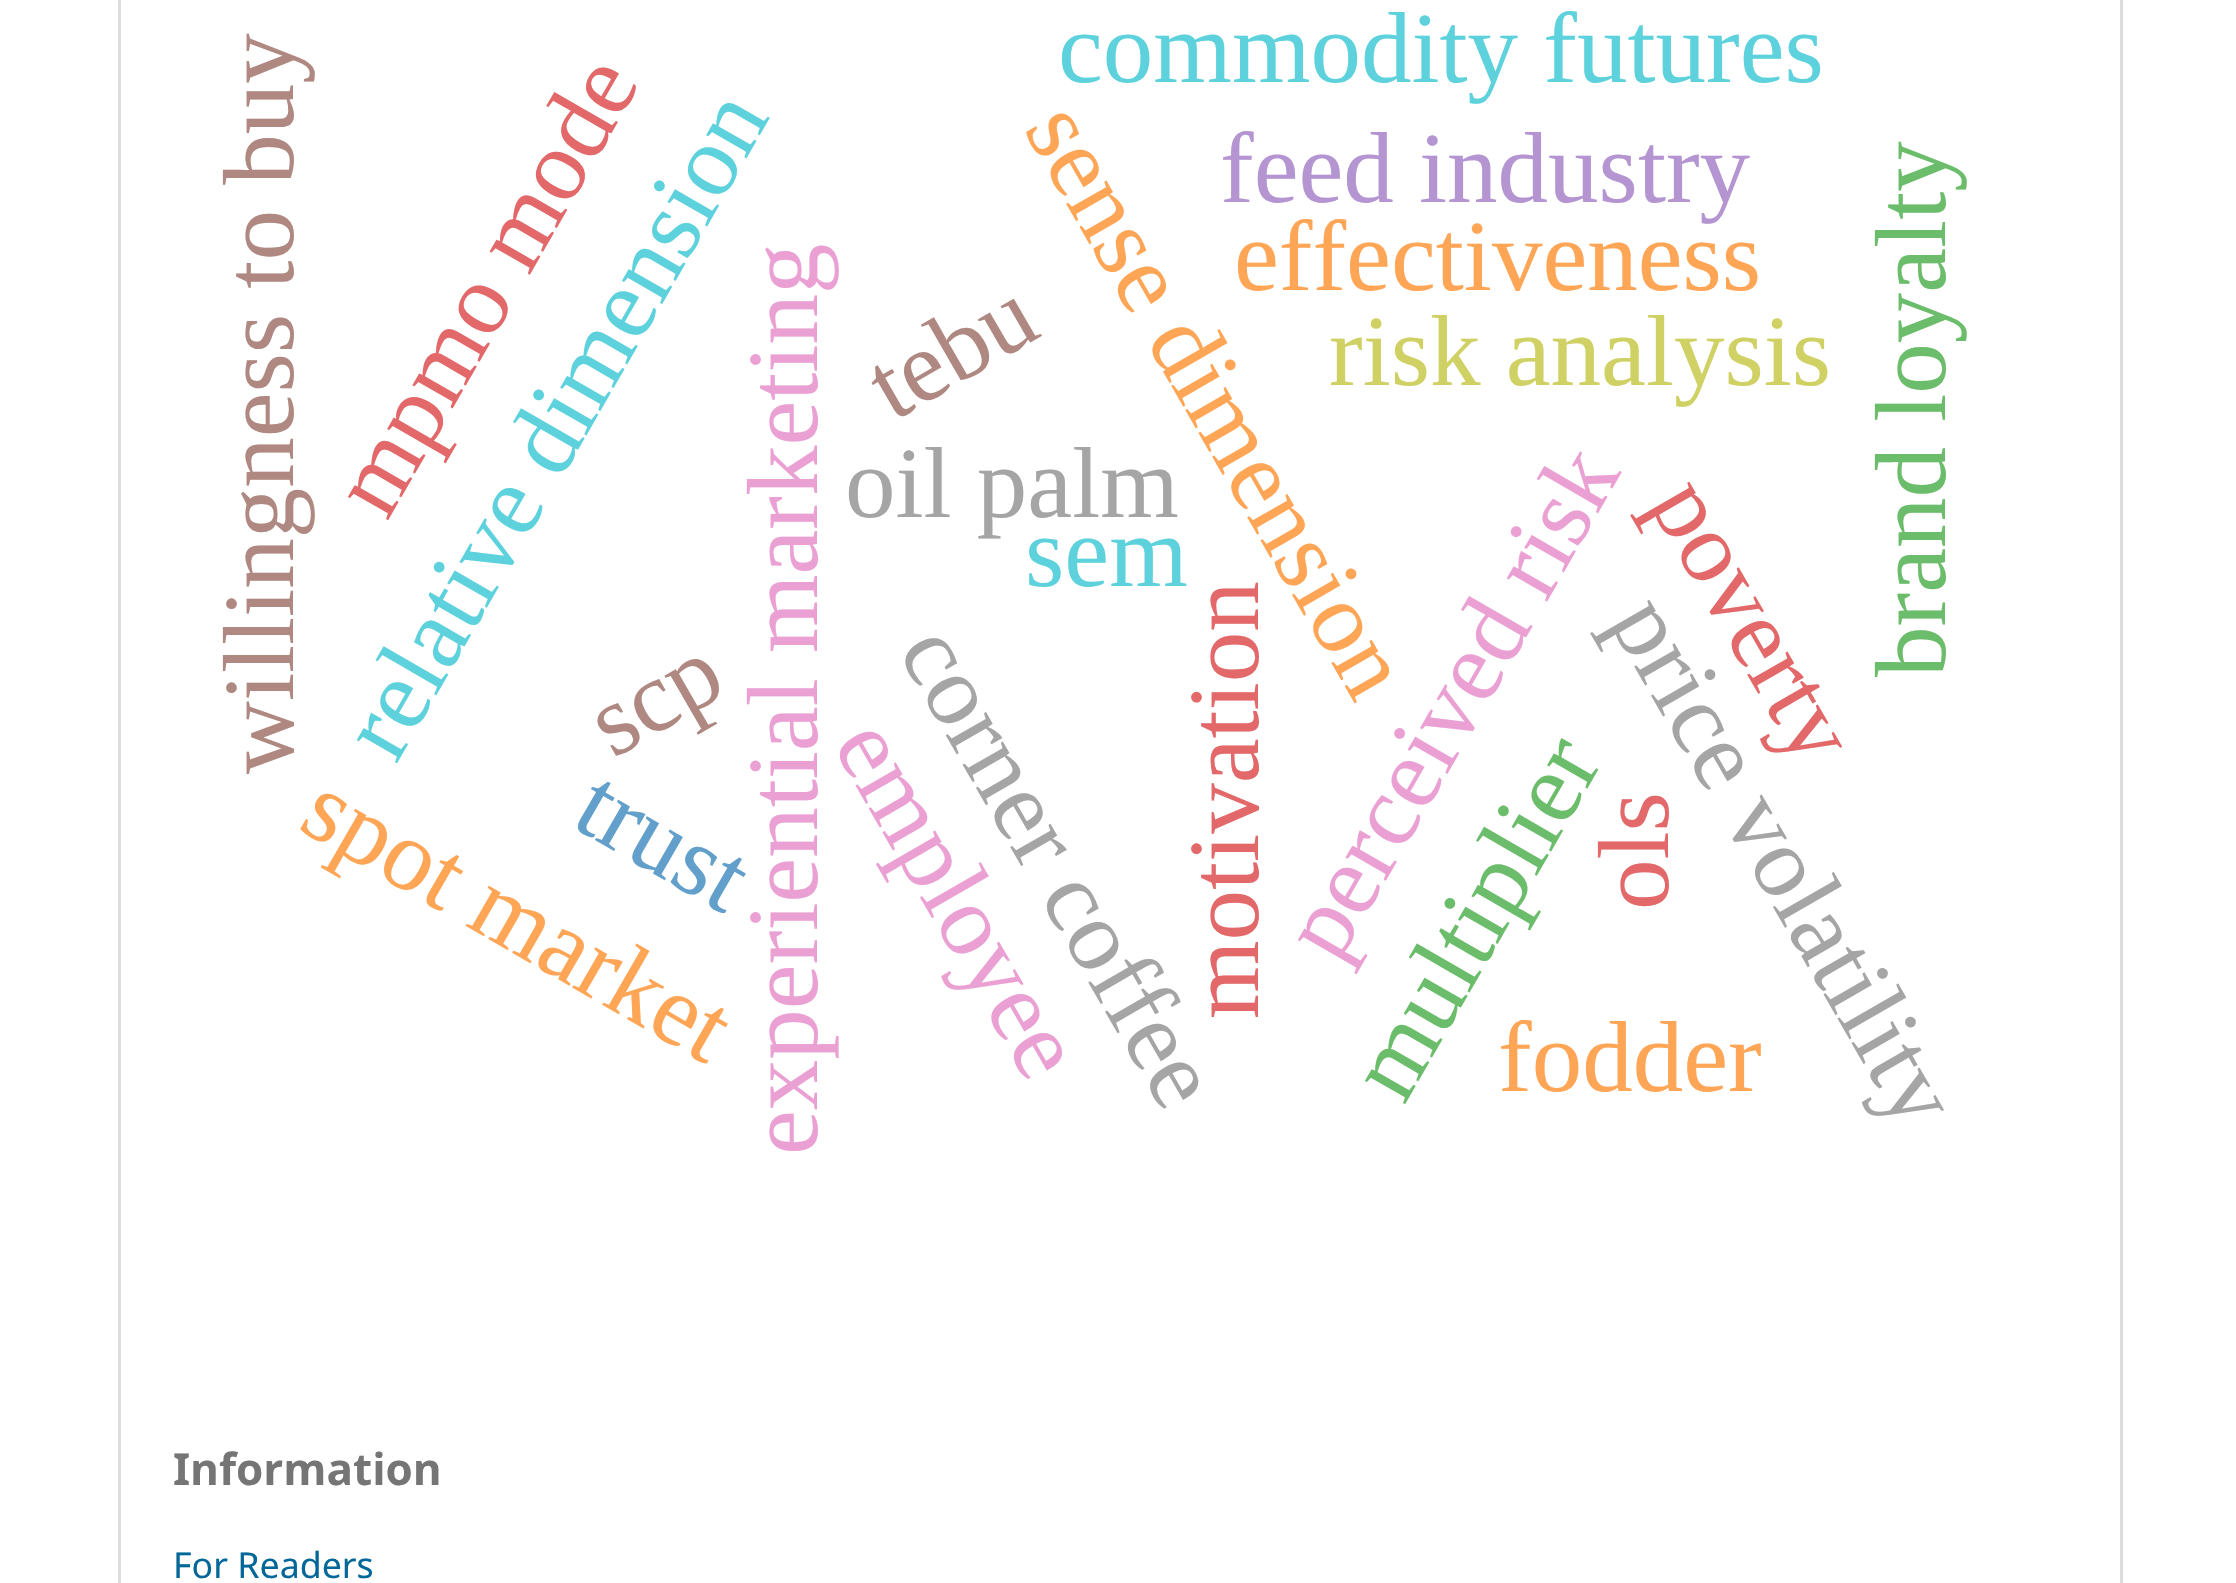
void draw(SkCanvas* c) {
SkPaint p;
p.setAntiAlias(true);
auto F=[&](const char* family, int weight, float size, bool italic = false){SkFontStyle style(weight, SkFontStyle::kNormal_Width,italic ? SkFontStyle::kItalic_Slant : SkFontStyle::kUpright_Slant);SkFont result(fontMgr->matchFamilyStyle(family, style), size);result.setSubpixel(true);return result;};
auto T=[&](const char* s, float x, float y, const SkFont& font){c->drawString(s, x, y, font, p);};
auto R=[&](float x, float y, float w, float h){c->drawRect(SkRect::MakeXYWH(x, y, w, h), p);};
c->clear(0xffffffff);
p.setColor(0xffdddddd);
R(118,0,3,1583);
R(2120,0,3,1583);
auto f1 = F("Liberation Serif",400,101);
p.setColor(0xffaf8981);
c->save();
c->rotate(-90,293,774);
T("willingness to buy",293,774,f1);
c->restore();
p.setColor(0xffeba0d4);
c->save();
c->rotate(-90,817,1155);
T("experiential marketing",817,1155,f1);
c->restore();
p.setColor(0xff5dd2dd);
c->save();
c->rotate(-60,396,765);
T("relative dimension",396,765,f1);
c->restore();
p.setColor(0xffe26869);
c->save();
c->rotate(-60,387,522);
T("mpmo mode",387,522,f1);
c->restore();
p.setColor(0xff5dd2dd);
T("commodity futures",1058,82,f1);
T("sem",1025,586,f1);
p.setColor(0xffffa556);
c->save();
c->rotate(60,1023,129);
T("sense dimension",1023,129,f1);
c->restore();
p.setColor(0xffb495d1);
T("feed industry",1220,202,f1);
p.setColor(0xff6bbd6b);
c->save();
c->rotate(-90,1945,677);
T("brand loyalty",1945,677,f1);
c->restore();
p.setColor(0xffaf8981);
c->save();
c->rotate(-30,893,422);
T("tebu",893,422,f1);
c->restore();
p.setColor(0xffffa556);
T("effectiveness",1234,290,f1);
p.setColor(0xffd0d164);
T("risk analysis",1329,385,f1);
p.setColor(0xffa5a5a5);
T("oil palm",845,517,f1);
p.setColor(0xffeba0d4);
c->save();
c->rotate(-60,1337,965);
T("perceived risk",1337,965,f1);
c->restore();
p.setColor(0xffa5a5a5);
c->save();
c->rotate(60,1608,621);
T("price volatility",1608,621,f1);
c->restore();
p.setColor(0xffe26869);
c->save();
c->rotate(60,1648,503);
T("poverty",1648,503,f1);
c->restore();
p.setColor(0xffaf8981);
c->save();
c->rotate(-30,613,759);
T("scp",613,759,f1);
c->restore();
p.setColor(0xffa5a5a5);
c->save();
c->rotate(60,897,651);
T("corner coffee",897,651,f1);
c->restore();
p.setColor(0xffe26869);
c->save();
c->rotate(-90,1258,1019);
T("motivation",1258,1019,f1);
c->restore();
p.setColor(0xff62a0cb);
c->save();
c->rotate(30,569,825);
T("trust",569,825,f1);
c->restore();
p.setColor(0xffeba0d4);
c->save();
c->rotate(60,832,745);
T("employee",832,745,f1);
c->restore();
p.setColor(0xff6bbd6b);
c->save();
c->rotate(-60,1404,1106);
T("multiplier",1404,1106,f1);
c->restore();
p.setColor(0xffffa556);
c->save();
c->rotate(30,296,828);
T("spot market",296,828,f1);
c->restore();
p.setColor(0xffe26869);
c->save();
c->rotate(-90,1668,910);
T("ols",1668,910,f1);
c->restore();
p.setColor(0xffffa556);
T("fodder",1498,1091,f1);
auto f2 = F("Noto Sans",700,44);
p.setColor(0xff757575);
T("Information",173,1485,f2);
auto f3 = F("Noto Sans",400,35.75);
p.setColor(0xff006798);
T("For Readers",173,1578,f3);
}
